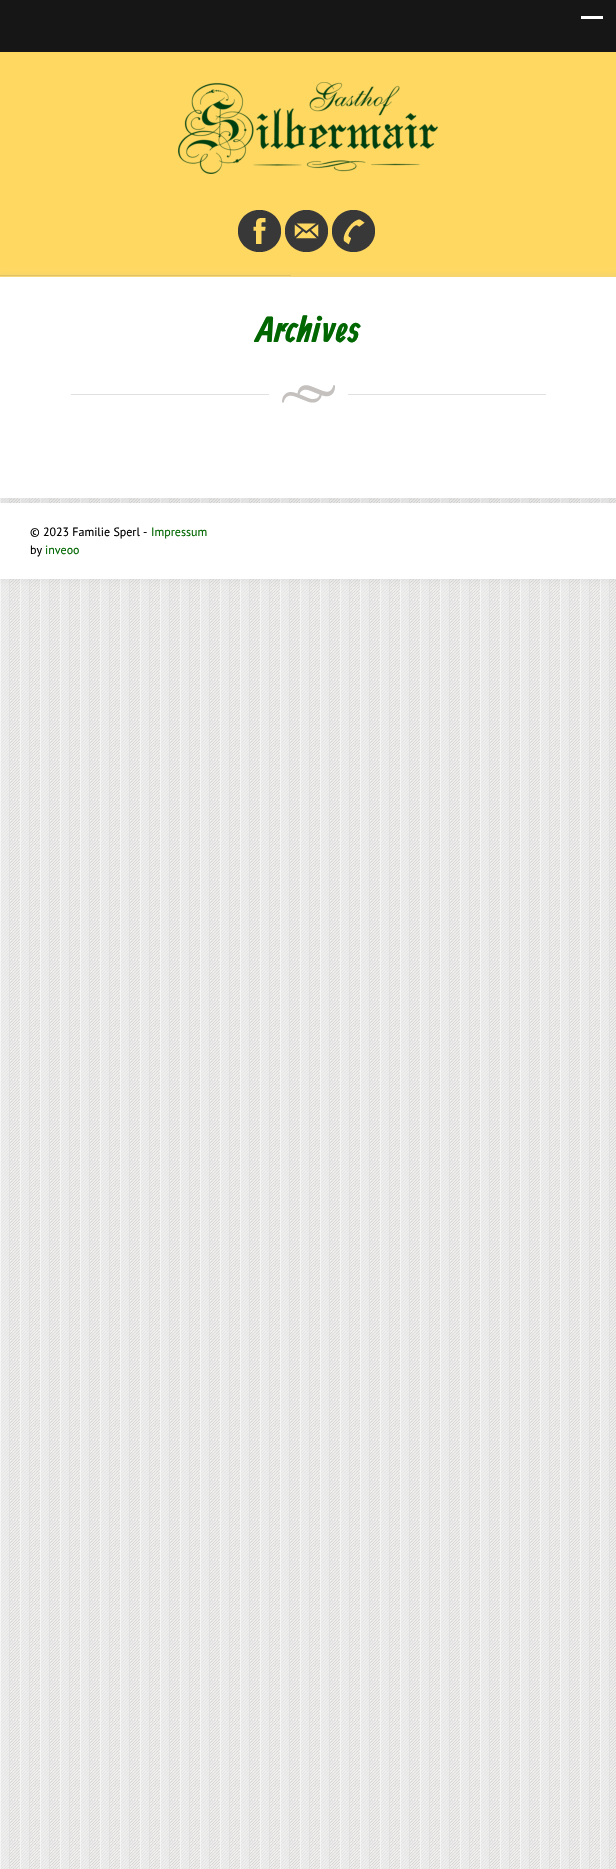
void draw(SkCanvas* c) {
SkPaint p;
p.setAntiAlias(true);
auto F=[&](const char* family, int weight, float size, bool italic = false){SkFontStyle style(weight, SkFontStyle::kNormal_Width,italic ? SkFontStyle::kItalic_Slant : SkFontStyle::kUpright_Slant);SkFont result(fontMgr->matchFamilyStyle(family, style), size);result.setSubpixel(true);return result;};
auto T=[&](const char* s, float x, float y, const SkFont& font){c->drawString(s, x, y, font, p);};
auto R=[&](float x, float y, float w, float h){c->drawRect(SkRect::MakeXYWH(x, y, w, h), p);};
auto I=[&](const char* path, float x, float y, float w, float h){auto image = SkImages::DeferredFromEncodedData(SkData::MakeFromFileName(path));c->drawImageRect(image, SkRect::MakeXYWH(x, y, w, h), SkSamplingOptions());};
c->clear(0xffffffff);
I("1.png",0,498,616,1371);
p.setColor(0xff161616);
R(0,0,616,52);
p.setColor(0xffffffff);
R(581,16,22,3);
p.setColor(0xffffd862);
R(0,52,616,225);
I("2.png",178,82,260,92);
I("3.png",0,275,291,2);
I("4.png",238,210,43,42);
I("5.png",285,210,43,42);
I("6.png",332,210,43,42);
p.setColor(0x33b8b8b8);
p.setMaskFilter(SkMaskFilter::MakeBlur(kNormal_SkBlurStyle, 3));
c->drawRect(SkRect::MakeXYWH(-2,501,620,80),p);
p.setMaskFilter(nullptr);
p.setColor(0xffffffff);
R(0,503,616,76);
p.setColor(0x33b8b8b8);
p.setMaskFilter(SkMaskFilter::MakeBlur(kNormal_SkBlurStyle, 3));
c->drawRect(SkRect::MakeXYWH(-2,275,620,225),p);
p.setMaskFilter(nullptr);
p.setColor(0xffffffff);
R(0,277,616,221);
auto f1 = F("Allan",700,36);
p.setColor(0xff006600);
T("Archives",256,342,f1);
I("7.png",71,385,475,18);
auto f2 = F("PT Sans",400,12);
p.setColor(0xff000000);
T("© 2023 Familie Sperl -",30,536,f2);
p.setColor(0xff006600);
T("Impressum",151,536,f2);
p.setColor(0xff000000);
T("by",30,554,f2);
p.setColor(0xff006600);
T("inveoo",45,554,f2);
}
